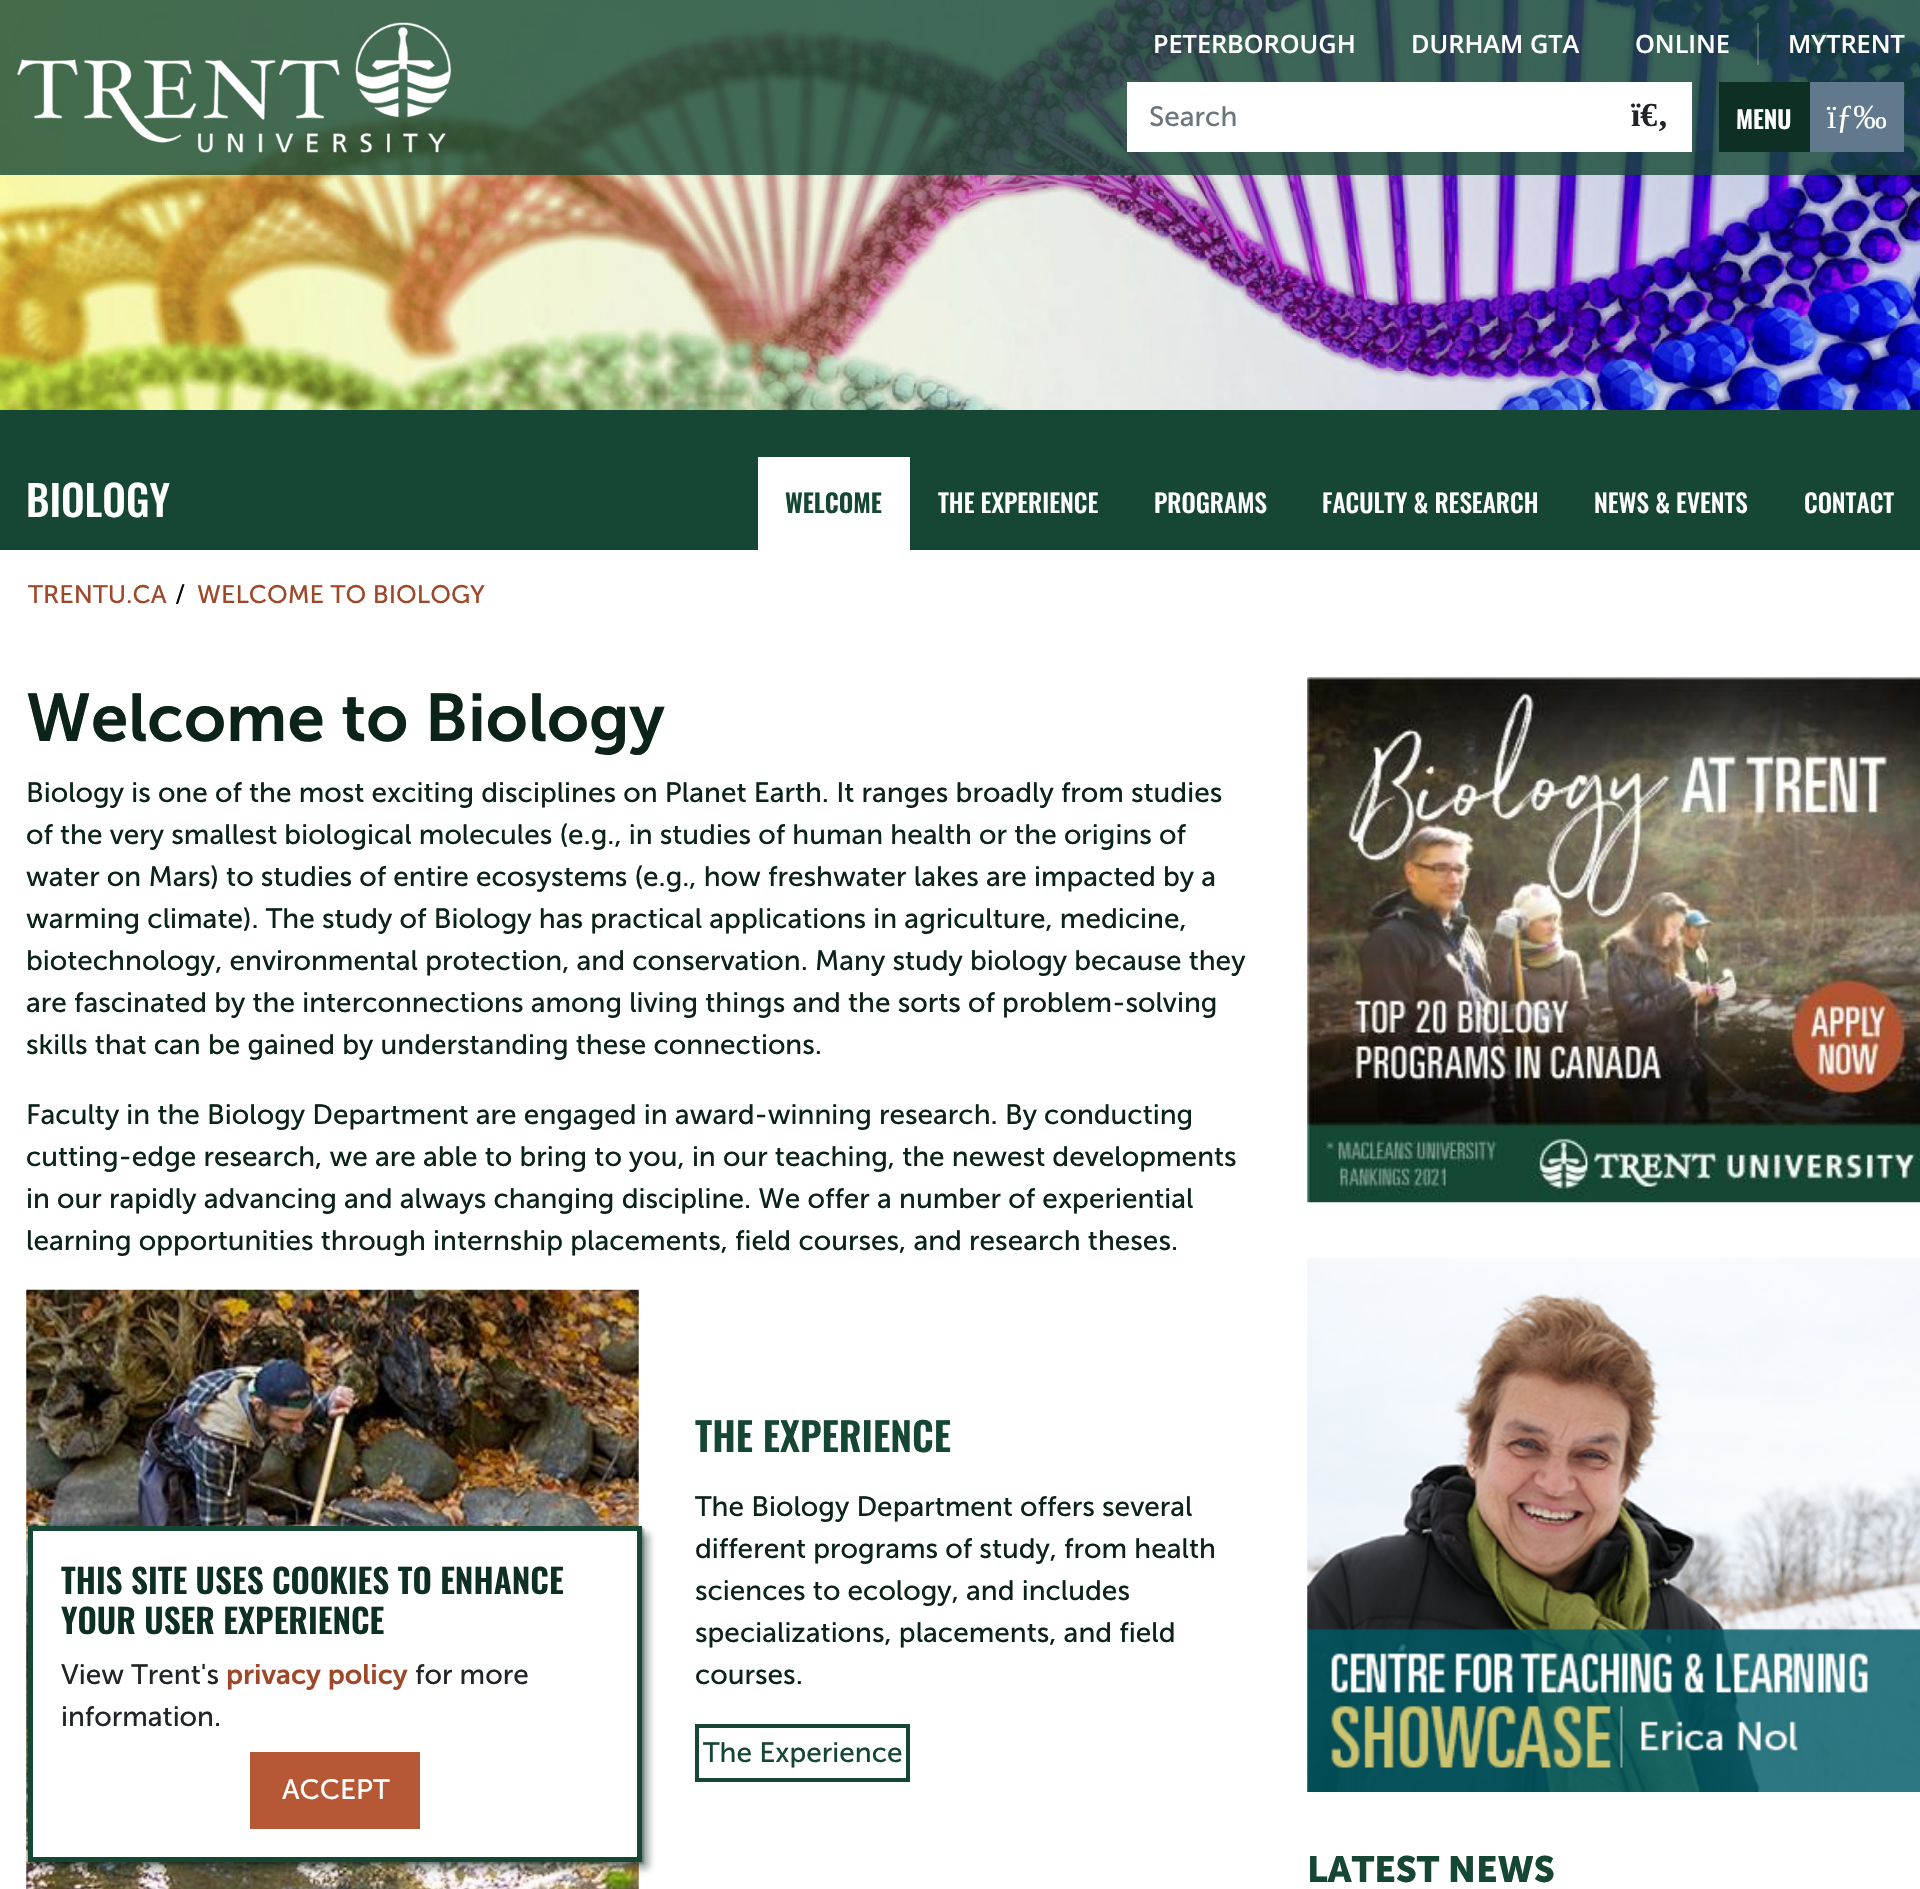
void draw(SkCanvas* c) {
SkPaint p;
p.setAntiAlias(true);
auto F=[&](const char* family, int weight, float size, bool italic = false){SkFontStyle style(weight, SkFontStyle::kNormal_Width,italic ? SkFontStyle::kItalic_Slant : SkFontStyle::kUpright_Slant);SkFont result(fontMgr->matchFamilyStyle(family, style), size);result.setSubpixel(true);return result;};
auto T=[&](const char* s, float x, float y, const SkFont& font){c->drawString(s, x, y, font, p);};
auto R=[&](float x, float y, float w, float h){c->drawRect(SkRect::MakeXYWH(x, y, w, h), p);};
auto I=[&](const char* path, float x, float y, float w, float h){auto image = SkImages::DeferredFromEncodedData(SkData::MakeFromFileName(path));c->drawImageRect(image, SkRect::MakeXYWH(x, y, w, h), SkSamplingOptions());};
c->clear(0xffffffff);
I("1.png",0,0,1920,410);
p.setColor(0xcc154734);
R(0,0,1920,175);
I("2.png",17,22,435,131);
auto f1 = F("Open Sans",600,25.25);
p.setColor(0xffffffff);
T("PETERBOROUGH",1153,53,f1);
T("DURHAM GTA",1411,53,f1);
T("ONLINE",1635,53,f1);
p.setColor(0x33ffffff);
R(1757,23,2,42);
p.setColor(0xffffffff);
T("MYTRENT",1788,53,f1);
R(1127,82,565,70);
auto f2 = F("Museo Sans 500",400,28);
p.setColor(0xff6c757d);
T("Search",1149,126,f2);
auto f3 = F("Liberation Serif",700,33.6);
p.setColor(0xff212529);
T("ï€‚",1631,126,f3);
p.setColor(0xff0e2f23);
R(1719,82,91,70);
auto f4 = F("Oswald",600,24.5);
p.setColor(0xffffffff);
T("MENU",1736,129,f4);
p.setColor(0xff62798d);
R(1810,82,94,70);
auto f5 = F("Liberation Serif",400,33.6);
p.setColor(0xffffffff);
T("ïƒ‰",1827,128,f5);
p.setColor(0xff154734);
R(0,410,1920,140);
auto f6 = F("Oswald",500,42);
p.setColor(0xffffffff);
T("BIOLOGY",26,517,f6);
R(758,457,152,93);
auto f7 = F("Oswald",600,25.25);
p.setColor(0xff154734);
T("WELCOME",785,513,f7);
auto f8 = F("Oswald",500,25.25);
p.setColor(0xffffffff);
T("THE EXPERIENCE",938,513,f8);
T("PROGRAMS",1154,513,f8);
T("FACULTY & RESEARCH",1322,513,f8);
T("NEWS & EVENTS",1594,513,f8);
T("CONTACT",1804,513,f8);
auto f9 = F("Museo Sans 500",400,25.25);
p.setColor(0xff9e4829);
T("TRENTU.CA",28,603,f9);
p.setColor(0xff040c09);
T("/",175,603,f9);
p.setColor(0xff9e4829);
T("WELCOME TO BIOLOGY",197,603,f9);
auto f10 = F("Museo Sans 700",600,67.25);
p.setColor(0xff0b2318);
T("Welcome to Biology",26,741,f10);
T("Biology is one of the most exciting disciplines on Planet Earth. It ranges broadly from studies",26,802,f2);
T("of the very smallest biological molecules (e.g., in studies of human health or the origins of",26,844,f2);
T("water on Mars) to studies of entire ecosystems (e.g., how freshwater lakes are impacted by a",26,886,f2);
T("warming climate). The study of Biology has practical applications in agriculture, medicine,",26,928,f2);
T("biotechnology, environmental protection, and conservation. Many study biology because they",26,970,f2);
T("are fascinated by the interconnections among living things and the sorts of problem-solving",26,1012,f2);
T("skills that can be gained by understanding these connections.",26,1054,f2);
T("Faculty in the Biology Department are engaged in award-winning research. By conducting",26,1124,f2);
T("cutting-edge research, we are able to bring to you, in our teaching, the newest developments",26,1166,f2);
T("in our rapidly advancing and always changing discipline. We offer a number of experiential",26,1208,f2);
T("learning opportunities through internship placements, field courses, and research theses.",26,1250,f2);
I("3.png",26,1289,613,600);
auto f11 = F("Oswald",600,39.25);
p.setColor(0xff154734);
T("THE EXPERIENCE",695,1452,f11);
p.setColor(0xff0b2318);
T("The Biology Department offers several",695,1516,f2);
T("different programs of study, from health",695,1558,f2);
T("sciences to ecology, and includes",695,1600,f2);
T("specializations, placements, and field",695,1642,f2);
T("courses.",695,1684,f2);
p.setStroke(true);
p.setStrokeWidth(4);
p.setColor(0xff154734);
c->drawRect(SkRect::MakeXYWH(697,1726,211,54),p);
p.setStroke(false);
T("The Experience",703,1762,f2);
I("4.png",1307,677,613,526);
I("5.png",1307,1258,613,534);
auto f12 = F("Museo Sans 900",700,36.5);
T("LATEST NEWS",1307,1882,f12);
p.setColor(0x660e2f23);
p.setMaskFilter(SkMaskFilter::MakeBlur(kNormal_SkBlurStyle, 3.5));
c->drawRect(SkRect::MakeXYWH(35,1533,614,336),p);
p.setMaskFilter(nullptr);
p.setColor(0x4d000000);
p.setMaskFilter(SkMaskFilter::MakeBlur(kNormal_SkBlurStyle, 1));
c->drawRect(SkRect::MakeXYWH(30,1528,614,336),p);
p.setMaskFilter(nullptr);
p.setColor(0xffffffff);
c->drawRect(SkRect::MakeXYWH(30.5,1528.5,609,331),p);
p.setStroke(true);
p.setStrokeWidth(5);
p.setColor(0xff154734);
c->drawRect(SkRect::MakeXYWH(30.5,1528.5,609,331),p);
auto f13 = F("Oswald",600,33.6);
p.setStroke(false);
p.setColor(0xff0e2f23);
T("THIS SITE USES COOKIES TO ENHANCE",61,1594,f13);
T("YOUR USER EXPERIENCE",61,1634,f13);
p.setColor(0xff212529);
T("View Trent's",61,1684,f2);
auto f14 = F("Museo Sans 700",600,28);
p.setColor(0xff9e4829);
T("privacy policy",226,1684,f14);
p.setColor(0xff212529);
T("for more",415,1684,f2);
T("information.",61,1726,f2);
p.setColor(0xffb65735);
R(250,1752,170,77);
p.setColor(0xffffffff);
T("ACCEPT",282,1799,f2);
}
